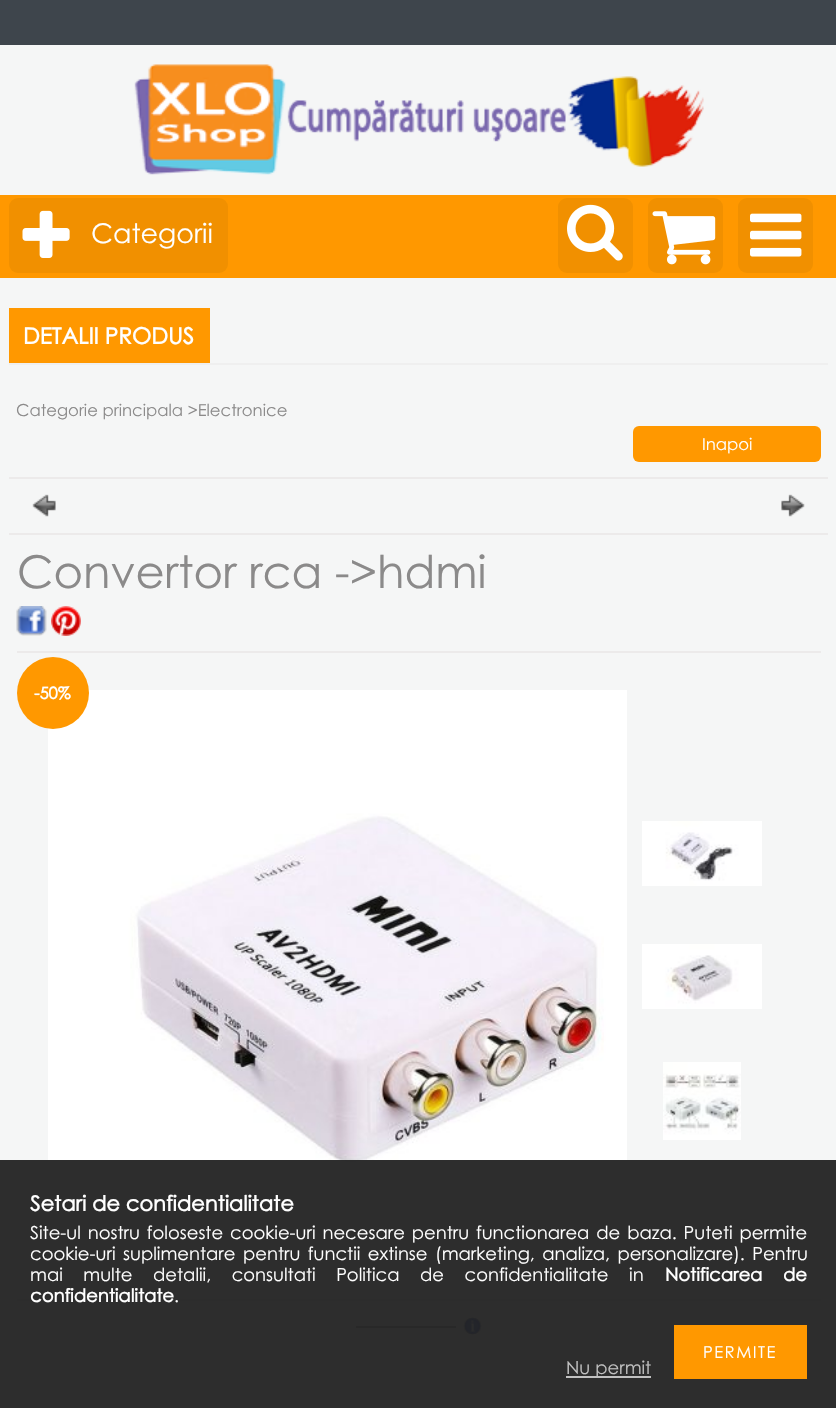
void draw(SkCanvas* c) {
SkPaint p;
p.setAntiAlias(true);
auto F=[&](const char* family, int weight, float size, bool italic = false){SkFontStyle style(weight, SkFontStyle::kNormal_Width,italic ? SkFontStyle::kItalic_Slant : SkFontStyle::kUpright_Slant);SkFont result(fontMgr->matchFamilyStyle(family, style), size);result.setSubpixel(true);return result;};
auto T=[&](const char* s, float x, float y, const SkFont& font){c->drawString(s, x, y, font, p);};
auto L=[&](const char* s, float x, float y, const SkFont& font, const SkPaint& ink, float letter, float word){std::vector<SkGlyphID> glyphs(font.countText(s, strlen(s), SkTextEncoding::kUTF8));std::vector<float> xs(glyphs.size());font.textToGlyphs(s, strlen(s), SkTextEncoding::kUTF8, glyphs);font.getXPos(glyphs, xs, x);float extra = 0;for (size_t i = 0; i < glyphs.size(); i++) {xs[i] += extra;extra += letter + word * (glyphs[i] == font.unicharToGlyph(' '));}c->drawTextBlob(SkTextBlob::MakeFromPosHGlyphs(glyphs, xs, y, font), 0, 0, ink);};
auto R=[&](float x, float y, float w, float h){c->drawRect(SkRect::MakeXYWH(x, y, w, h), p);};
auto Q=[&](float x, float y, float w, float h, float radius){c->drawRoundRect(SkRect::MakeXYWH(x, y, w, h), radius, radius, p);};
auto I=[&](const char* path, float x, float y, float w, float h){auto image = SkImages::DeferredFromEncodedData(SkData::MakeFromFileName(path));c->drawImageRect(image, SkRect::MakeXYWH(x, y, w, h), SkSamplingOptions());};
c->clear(0xfff5f6f6);
p.setColor(0xff3e454c);
R(0,0,836,45);
I("1.png",134,64,570,111);
p.setColor(0xffff9800);
R(0,195,836,83);
p.setColor(0xfff19000);
Q(9,198,219,75,9);
I("2.png",22,210,48,48);
auto f1 = F("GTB",400,27);
p.setColor(0xffffffff);
T("Categorii",91,243,f1);
p.setColor(0xfff19000);
Q(558,198,75,75,9);
I("3.png",567,204,56,57);
Q(648,198,75,75,9);
I("4.png",652,211,64,54);
Q(738,198,75,75,9);
I("5.png",750,213,52,44);
p.setColor(0xffefefef);
R(9,363,819,2);
p.setColor(0xffff9800);
R(9,308,201,55);
auto f2 = F("GTB",700,22.5);
p.setColor(0xffffffff);
T("DETALII PRODUS",23,344,f2);
auto f3 = F("GTB",400,16.5);
p.setColor(0xff8b8a8a);
T("Categorie principala >Electronice",16,416,f3);
p.setColor(0xffff9800);
Q(633,426,188,36,6);
p.setColor(0xffffffff);
T("Inapoi",702,450,f3);
p.setColor(0xffeceaea);
R(9,477,819,2);
I("6.png",32,494,24,23);
I("7.png",781,494,24,23);
R(9,533,819,2);
R(17,651,804,2);
auto f4 = F("GTB",400,45);
p.setColor(0xff8b8a8a);
T("Convertor rca ->hdmi",17,588,f4);
I("8.png",16,606,31,30);
I("9.png",51,606,30,30);
p.setColor(0xffeceaea);
R(17,1299,804,2);
I("10.png",48,690,579,579);
p.setColor(0xffff9800);
c->drawCircle(53,693,36,p);
auto f5 = F("GTB",700,16.5);
p.setColor(0xffffffff);
T("-50%",34,699,f5);
I("11.png",642,821,120,65);
I("12.png",642,944,120,65);
I("13.png",663,1062,78,78);
p.setColor(0xff8b8a8a);
R(356,1326,100,2);
I("14.png",463,1317,19,18);
p.setColor(0xf2222222);
R(0,1160,836,248);
auto f6 = F("GTB",700,21);
p.setColor(0xffffffff);
T("Setari de confidentialitate",30,1211,f6);
auto f7 = F("GTB",400,18);
L("Site-ul nostru foloseste cookie-uri necesare pentru functionarea de baza. Puteti permite",30,1239,f7,p,0,1.9);
L("cookie-uri suplimentare pentru functii extinse (marketing, analiza, personalizare). Pentru",30,1260,f7,p,0,2.5);
L("mai multe detalii, consultati Politica de confidentialitate in",30,1281,f7,p,0,15.5);
auto f8 = F("GTB",700,18);
L("Notificarea de",665,1281,f8,p,0,15.5);
T("confidentialitate",30,1302,f8);
T(".",174,1302,f7);
p.setColor(0xffff9800);
R(674,1325,133,54);
p.setColor(0xffffffff);
L("PERMITE",703,1358,f3,p,1.5,0);
p.setColor(0xb3ffffff);
R(566,1376,85,2);
p.setColor(0xffc0c0c0);
T("Nu permit",566,1374,f7);
}
